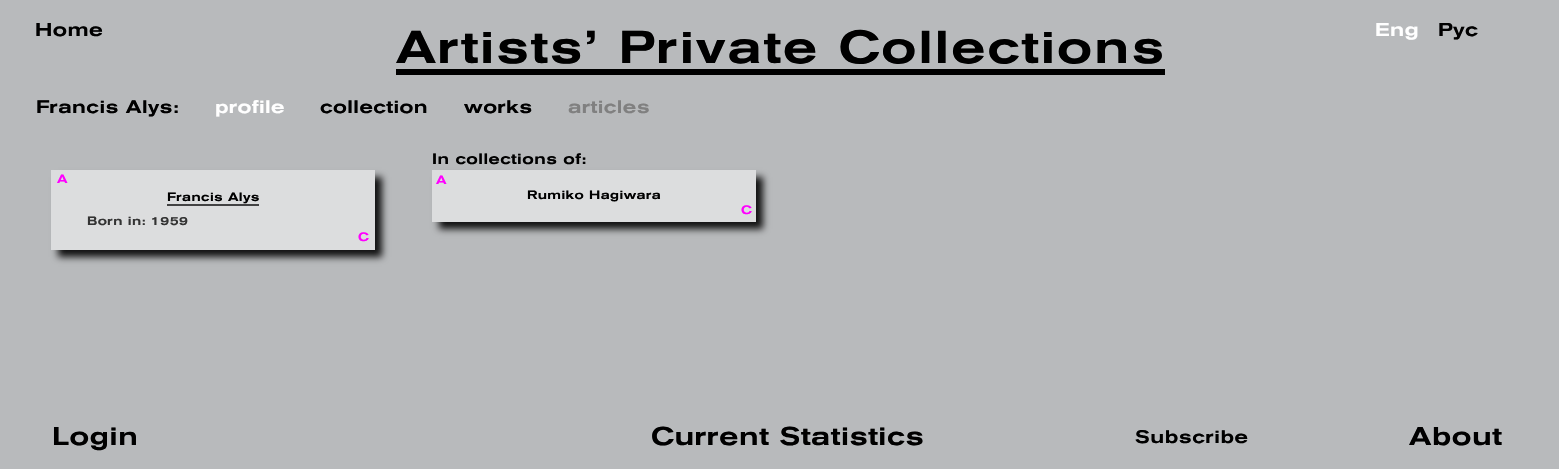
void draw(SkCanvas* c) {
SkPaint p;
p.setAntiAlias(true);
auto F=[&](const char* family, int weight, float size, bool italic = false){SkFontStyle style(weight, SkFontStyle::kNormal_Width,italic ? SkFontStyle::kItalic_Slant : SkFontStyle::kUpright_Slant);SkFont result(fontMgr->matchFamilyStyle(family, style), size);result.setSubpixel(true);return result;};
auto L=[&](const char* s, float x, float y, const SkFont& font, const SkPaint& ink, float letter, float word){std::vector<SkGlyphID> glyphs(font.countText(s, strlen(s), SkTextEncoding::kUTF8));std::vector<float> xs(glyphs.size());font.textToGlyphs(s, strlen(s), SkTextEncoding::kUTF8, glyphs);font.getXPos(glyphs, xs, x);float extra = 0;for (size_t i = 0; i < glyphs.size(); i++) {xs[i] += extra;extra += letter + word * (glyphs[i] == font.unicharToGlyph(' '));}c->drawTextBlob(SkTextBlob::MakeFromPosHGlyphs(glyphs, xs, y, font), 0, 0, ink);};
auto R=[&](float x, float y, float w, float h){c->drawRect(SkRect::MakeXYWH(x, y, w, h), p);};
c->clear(0xffb8babc);
auto f1 = F("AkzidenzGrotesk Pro",500,18.5);
p.setColor(0xff000000);
L("Home",35,36,f1,p,.4,0);
R(396,69,769,6);
auto f2 = F("AkzidenzGrotesk Pro",500,45.6);
L("Artists’ Private Collections",396,63,f2,p,2.05,0);
p.setColor(0xffffffff);
L("Eng",1375,36,f1,p,.4,0);
p.setColor(0xff000000);
L("Рус",1438,36,f1,p,.4,0);
auto f3 = F("AkzidenzGrotesk Pro",500,18);
L("Francis Alys:",36,113,f3,p,.4,0);
p.setColor(0xffffffff);
L("profile",215,113,f3,p,.4,0);
p.setColor(0xff000000);
L("collection",320,113,f3,p,.4,0);
L("works",464,113,f3,p,.4,0);
p.setColor(0xff808080);
L("articles",568,113,f3,p,.4,0);
p.setColor(0xe6000000);
p.setMaskFilter(SkMaskFilter::MakeBlur(kNormal_SkBlurStyle, 3.5));
c->drawRect(SkRect::MakeXYWH(58,177,324,80),p);
p.setMaskFilter(nullptr);
p.setColor(0xffdcddde);
R(51,170,324,80);
auto f4 = F("AkzidenzGrotesk Pro",500,12);
p.setColor(0xffff00ff);
L("A",57,183,f4,p,.4,0);
p.setColor(0xff000000);
L("Francis Alys",167,201,f4,p,.4,0);
p.setColor(0xff424243);
R(167,204,92,2);
p.setColor(0xff333333);
L("Born in: 1959",87,225,f4,p,.4,0);
p.setColor(0xffff00ff);
L("C",358,241,f4,p,.4,0);
auto f5 = F("AkzidenzGrotesk Pro",500,15);
p.setColor(0xff000000);
L("In collections of:",432,164,f5,p,.4,0);
p.setColor(0xe6000000);
p.setMaskFilter(SkMaskFilter::MakeBlur(kNormal_SkBlurStyle, 3.5));
c->drawRect(SkRect::MakeXYWH(439,177,324,52),p);
p.setMaskFilter(nullptr);
p.setColor(0xffdcddde);
R(432,170,324,52);
p.setColor(0xffff00ff);
L("A",436,184,f4,p,.4,0);
p.setColor(0xff000000);
L("Rumiko Hagiwara",527,199,f4,p,.4,0);
p.setColor(0xffff00ff);
L("C",741,214,f4,p,.4,0);
auto f6 = F("AkzidenzGrotesk Pro",500,25.5);
p.setColor(0xff000000);
L("Login",52,445,f6,p,.6,0);
L("Current Statistics",651,445,f6,p,.6,0);
L("Subscribe",1135,443,f3,p,.6,0);
L("About",1409,445,f6,p,.6,0);
}
